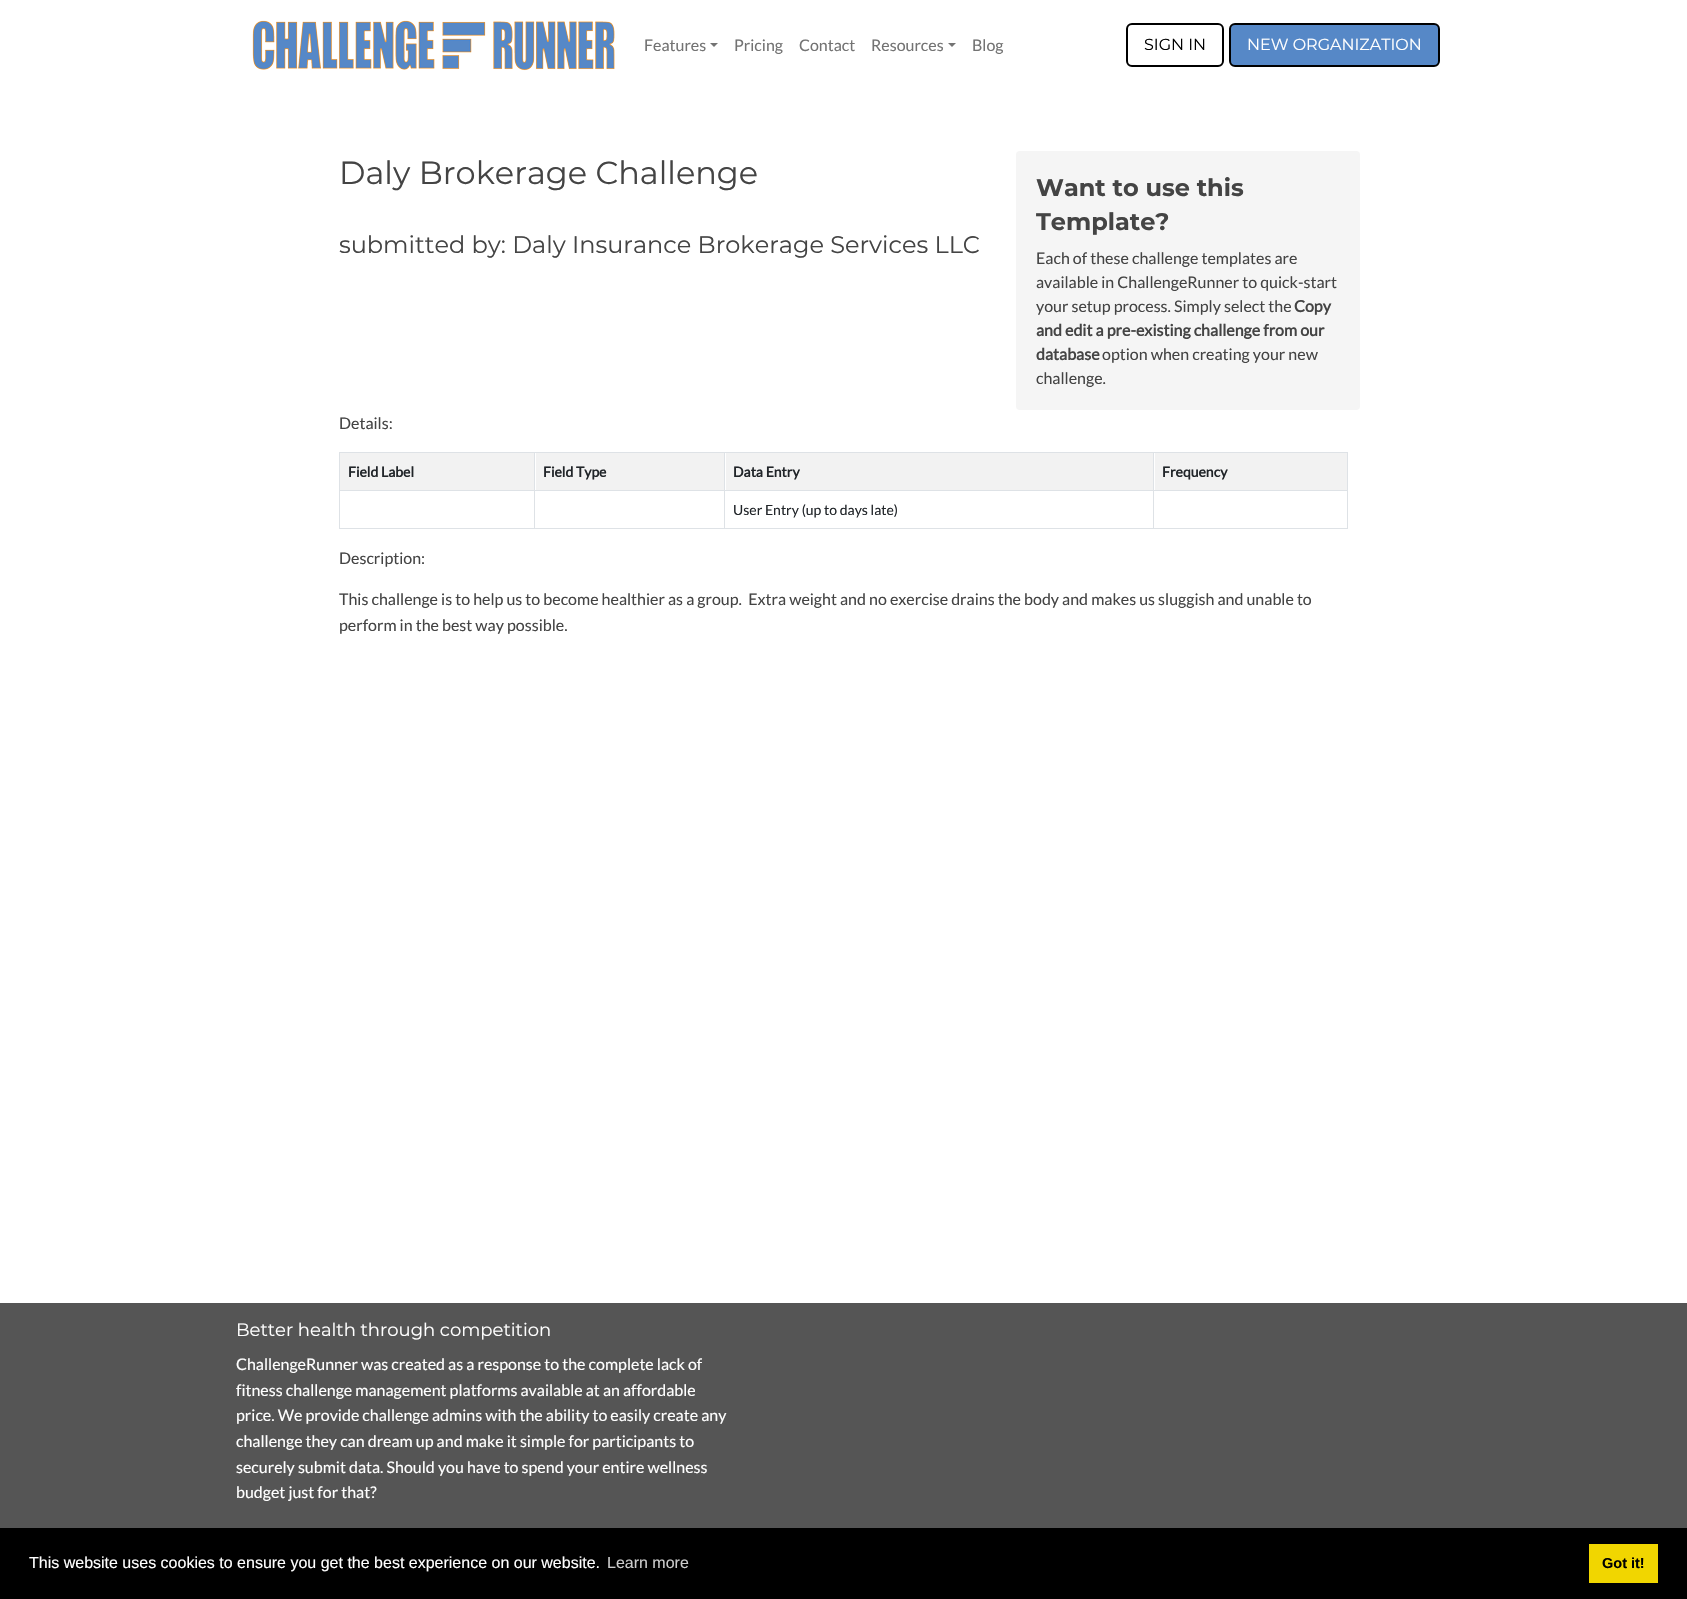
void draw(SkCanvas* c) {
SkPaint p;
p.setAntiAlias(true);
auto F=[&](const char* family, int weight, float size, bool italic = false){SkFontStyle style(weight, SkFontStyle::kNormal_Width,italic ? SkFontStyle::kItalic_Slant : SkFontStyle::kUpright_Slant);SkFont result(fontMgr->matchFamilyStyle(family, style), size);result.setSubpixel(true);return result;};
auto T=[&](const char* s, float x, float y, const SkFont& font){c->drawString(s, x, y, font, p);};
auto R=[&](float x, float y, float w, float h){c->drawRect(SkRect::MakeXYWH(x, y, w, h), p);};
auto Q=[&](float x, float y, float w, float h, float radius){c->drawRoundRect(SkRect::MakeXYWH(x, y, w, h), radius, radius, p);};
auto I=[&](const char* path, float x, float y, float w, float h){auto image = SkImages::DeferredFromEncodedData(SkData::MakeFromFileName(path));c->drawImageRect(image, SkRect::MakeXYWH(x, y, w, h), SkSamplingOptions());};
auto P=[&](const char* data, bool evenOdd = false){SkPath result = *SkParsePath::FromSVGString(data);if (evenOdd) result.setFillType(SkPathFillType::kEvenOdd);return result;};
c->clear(0xffffffff);
I("1.png",252,20,363,51);
auto f1 = F("Lato",400,16);
p.setColor(0xff737373);
T("Features",644,51,f1);
c->drawPath(P("M710 43h8l-4 4z"),p);
T("Pricing",734,51,f1);
T("Contact",799,51,f1);
T("Resources",871,51,f1);
c->drawPath(P("M948 43h8l-4 4z"),p);
T("Blog",972,51,f1);
p.setStroke(true);
p.setStrokeWidth(2);
p.setColor(0xff000000);
c->drawRoundRect(SkRect::MakeXYWH(1127,24,96,42),5,5,p);
auto f2 = F("Montserrat",400,16);
p.setStroke(false);
T("SIGN IN",1144,50,f2);
p.setColor(0xff5688c7);
c->drawRoundRect(SkRect::MakeXYWH(1230,24,209,42),5,5,p);
p.setStroke(true);
p.setColor(0xff000000);
c->drawRoundRect(SkRect::MakeXYWH(1230,24,209,42),5,5,p);
p.setStroke(false);
p.setColor(0xffffffff);
T("NEW ORGANIZATION",1247,50,f2);
auto f3 = F("Montserrat",400,32);
p.setColor(0xff444444);
T("Daly Brokerage Challenge",339,184,f3);
auto f4 = F("Montserrat",400,24);
T("submitted by: Daly Insurance Brokerage Services LLC",339,253,f4);
p.setColor(0xfff5f5f5);
Q(1016,151,344,259,4);
auto f5 = F("Montserrat",700,24);
p.setColor(0xff444444);
T("Want to use this",1036,196,f5);
T("Template?",1036,230,f5);
T("Each of these challenge templates are",1036,264,f1);
T("available in ChallengeRunner to quick-start",1036,288,f1);
T("your setup process. Simply select the",1036,312,f1);
auto f6 = F("Lato",700,16);
T("Copy",1294,312,f6);
T("and edit a pre-existing challenge from our",1036,336,f6);
T("database",1036,360,f6);
T("option when creating your new",1102,360,f1);
T("challenge.",1036,384,f1);
T("Details:",339,429,f1);
p.setColor(0xffdee2e6);
R(339,452,1009,1);
p.setColor(0xfff2f2f2);
R(340,453,194,37);
auto f7 = F("Lato",700,14);
p.setColor(0xff212529);
T("Field Label",348,477,f7);
p.setColor(0xfff2f2f2);
R(536,453,188,37);
p.setColor(0xff212529);
T("Field Type",543,477,f7);
p.setColor(0xfff2f2f2);
R(726,453,427,37);
p.setColor(0xff212529);
T("Data Entry",733,477,f7);
p.setColor(0xfff2f2f2);
R(1155,453,192,37);
p.setColor(0xff212529);
T("Frequency",1162,477,f7);
p.setColor(0xffdee2e6);
R(339,490,1009,1);
R(339,528,1009,1);
R(339,452,1,77);
R(534,452,1,77);
R(724,452,1,77);
auto f8 = F("Lato",400,14);
p.setColor(0xff212529);
T("User Entry (up to days late)",733,515,f8);
p.setColor(0xffdee2e6);
R(1347,452,1,77);
R(1153,452,1,77);
p.setColor(0xff444444);
T("Description:",339,564,f1);
T("This challenge is to help us to become healthier as a group.  Extra weight and no exercise drains the body and makes us sluggish and unable to",339,605,f1);
T("perform in the best way possible.",339,631,f1);
p.setColor(0xff555555);
R(0,1303,1687,225);
auto f9 = F("Montserrat",400,18);
p.setColor(0xffffffff);
T("Better health through competition",236,1336,f9);
T("ChallengeRunner was created as a response to the complete lack of",236,1370,f1);
T("fitness challenge management platforms available at an affordable",236,1396,f1);
T("price. We provide challenge admins with the ability to easily create any",236,1421,f1);
T("challenge they can dream up and make it simple for participants to",236,1447,f1);
T("securely submit data. Should you have to spend your entire wellness",236,1473,f1);
T("budget just for that?",236,1498,f1);
p.setColor(0xff000000);
R(0,1528,1687,71);
auto f10 = F("Liberation Sans",400,16);
p.setColor(0xffffffff);
T("This website uses cookies to ensure you get the best experience on our website.",29,1568,f10);
p.setColor(0xffcccccc);
T("Learn more",607,1568,f10);
p.setColor(0xfff1d600);
R(1589,1544,69,39);
auto f11 = F("Liberation Sans",700,14.5);
p.setColor(0xff000000);
T("Got it!",1602,1568,f11);
}
